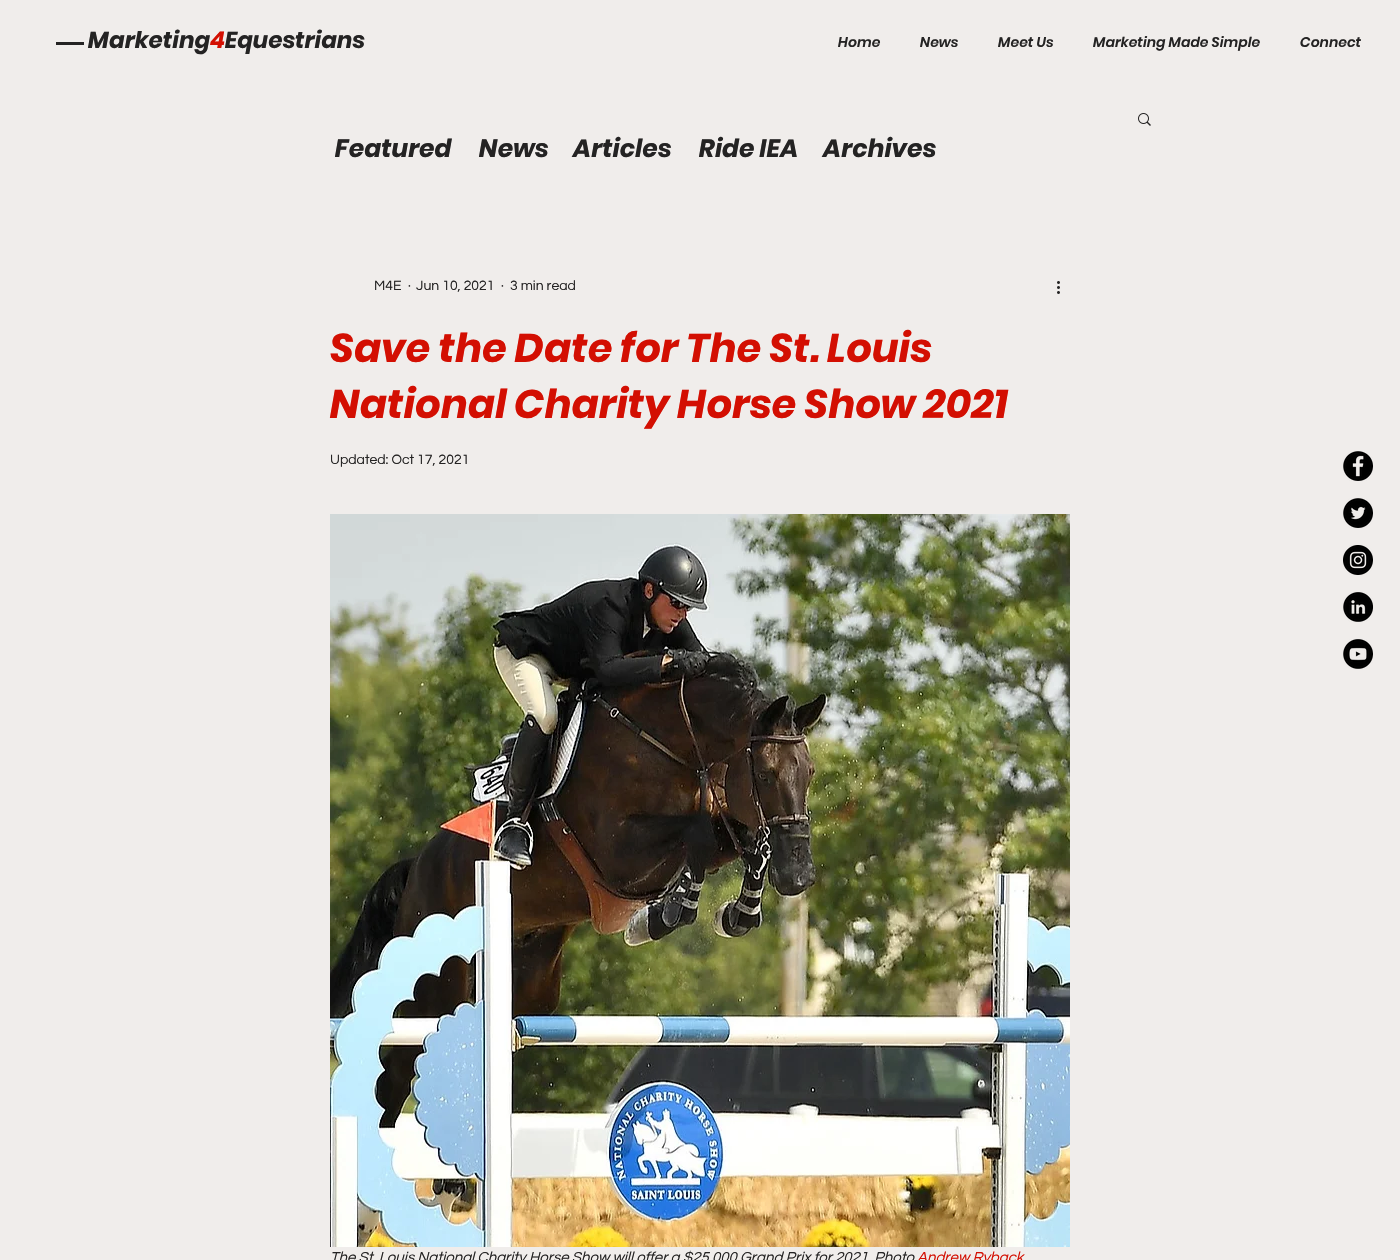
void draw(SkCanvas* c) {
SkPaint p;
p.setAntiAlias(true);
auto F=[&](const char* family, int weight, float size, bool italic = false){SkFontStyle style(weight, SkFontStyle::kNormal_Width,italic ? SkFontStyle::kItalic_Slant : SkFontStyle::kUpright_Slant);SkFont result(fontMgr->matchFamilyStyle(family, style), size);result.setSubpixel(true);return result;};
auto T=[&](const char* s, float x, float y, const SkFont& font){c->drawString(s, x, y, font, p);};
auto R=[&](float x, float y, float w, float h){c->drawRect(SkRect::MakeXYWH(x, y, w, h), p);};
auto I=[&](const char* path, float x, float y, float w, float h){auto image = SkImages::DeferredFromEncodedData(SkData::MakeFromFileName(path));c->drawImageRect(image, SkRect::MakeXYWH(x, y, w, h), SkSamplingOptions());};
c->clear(0xfff0edeb);
p.setColor(0xff242323);
R(56,42,28,3);
auto f1 = F("Poppins",700,23,true);
T("Marketing",88,48,f1);
p.setColor(0xffd30f02);
T("4",210,48,f1);
p.setColor(0xff242323);
T("Equestrians",225,48,f1);
auto f2 = F("Poppins",600,14,true);
T("Home",838,47,f2);
T("News",920,47,f2);
T("Meet Us",998,47,f2);
T("Marketing Made Simple",1093,47,f2);
T("Connect",1300,47,f2);
auto f3 = F("Poppins",700,25,true);
T("Featured",335,157,f3);
T("News",479,157,f3);
T("Articles",573,157,f3);
T("Ride IEA",699,157,f3);
T("Archives",823,157,f3);
I("1.png",1138,113,13,13);
auto f4 = F("Questrial",400,14);
T("M4E",374,290,f4);
T("·",408,290,f4);
T("Jun 10, 2021",416,290,f4);
T("·",501,290,f4);
T("3 min read",510,290,f4);
I("2.png",1057,281,3,13);
auto f5 = F("Poppins",700,40,true);
p.setColor(0xffd30f02);
T("Save the Date for The St. Louis",330,362,f5);
T("National Charity Horse Show 2021",330,418,f5);
p.setColor(0xff242323);
T("Updated: Oct 17, 2021",330,464,f4);
I("3.png",330,514,740,733);
auto f6 = F("Questrial",400,15,true);
T("The St. Louis National Charity Horse Show will offer a $25,000 Grand Prix for 2021. Photo",330,1262,f6);
p.setColor(0xffd30f02);
T("Andrew Ryback",917,1262,f6);
I("4.png",1343,451,30,30);
I("5.png",1343,498,30,30);
I("6.png",1343,545,30,30);
I("7.png",1343,592,30,30);
I("8.png",1343,639,30,30);
}
